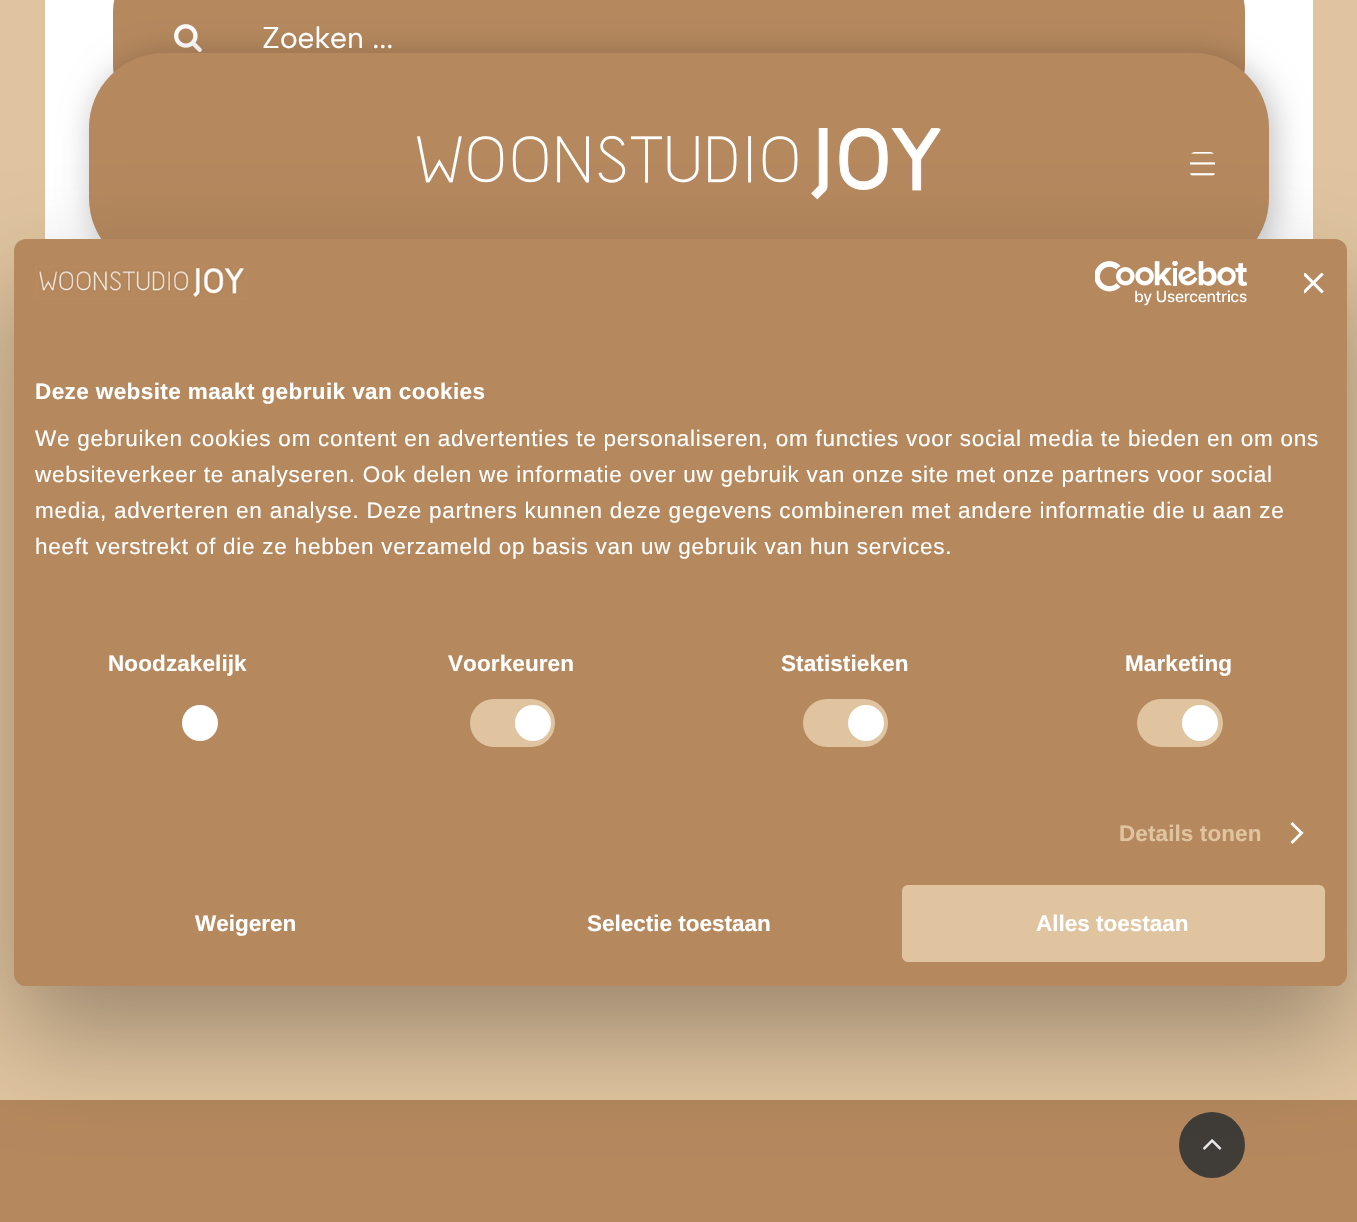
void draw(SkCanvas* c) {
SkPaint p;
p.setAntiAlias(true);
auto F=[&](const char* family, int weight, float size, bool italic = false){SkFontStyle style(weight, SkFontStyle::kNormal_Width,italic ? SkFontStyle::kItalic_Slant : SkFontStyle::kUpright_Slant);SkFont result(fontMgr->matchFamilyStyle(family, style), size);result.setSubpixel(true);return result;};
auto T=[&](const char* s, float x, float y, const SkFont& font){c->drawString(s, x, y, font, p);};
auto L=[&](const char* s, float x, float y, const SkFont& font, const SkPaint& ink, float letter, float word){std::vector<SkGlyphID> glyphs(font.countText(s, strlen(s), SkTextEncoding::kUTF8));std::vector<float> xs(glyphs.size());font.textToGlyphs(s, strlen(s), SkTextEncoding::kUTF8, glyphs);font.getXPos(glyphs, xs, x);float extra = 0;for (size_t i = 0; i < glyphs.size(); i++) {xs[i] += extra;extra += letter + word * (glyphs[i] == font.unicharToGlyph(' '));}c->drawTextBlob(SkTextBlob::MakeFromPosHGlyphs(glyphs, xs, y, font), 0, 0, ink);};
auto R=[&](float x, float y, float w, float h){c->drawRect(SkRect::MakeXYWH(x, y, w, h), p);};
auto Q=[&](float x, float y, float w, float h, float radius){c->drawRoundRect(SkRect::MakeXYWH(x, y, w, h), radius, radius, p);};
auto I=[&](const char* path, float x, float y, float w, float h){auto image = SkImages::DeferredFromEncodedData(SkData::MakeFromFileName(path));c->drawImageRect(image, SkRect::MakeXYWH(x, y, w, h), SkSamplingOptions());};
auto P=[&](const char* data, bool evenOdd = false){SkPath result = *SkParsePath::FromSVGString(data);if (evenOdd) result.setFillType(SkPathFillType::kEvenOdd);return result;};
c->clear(0xffe0c49f);
p.setColor(0xffffffff);
R(45,0,1268,239);
p.setColor(0xffb5885e);
Q(113,-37,1132,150,48);
I("3.png",174,24,28,28);
p.setColor(0x40000000);
p.setMaskFilter(SkMaskFilter::MakeBlur(kNormal_SkBlurStyle, 16));
c->drawRoundRect(SkRect::MakeXYWH(93,57,1181,221),75,75,p);
p.setMaskFilter(nullptr);
p.setColor(0xffb5885e);
Q(89,53,1180,220,75);
I("1.png",417,128,524,72);
I("2.png",1190,152,25,24);
auto f1 = F("Albert Sans",400,30);
p.setColor(0xffffffff);
T("Zoeken ...",262,48,f1);
p.setColor(0xffb5885e);
R(0,1100,1357,122);
p.setColor(0xff403c37);
c->drawCircle(1212,1145,33,p);
I("7.png",1203,1139,19,11);
p.setColor(0x4d000000);
p.setMaskFilter(SkMaskFilter::MakeBlur(kNormal_SkBlurStyle, 51));
c->drawRoundRect(SkRect::MakeXYWH(14,287,1333,747),12,12,p);
p.setMaskFilter(nullptr);
p.setColor(0xffb5885e);
Q(14,239,1333,747,12);
I("4.png",36,266,210,33);
I("5.png",1095,261,153,45);
I("6.png",1304,273,20,21);
auto f2 = F("Liberation Sans",700,22.5);
p.setColor(0xffffffff);
L("Deze website maakt gebruik van cookies",35,399,f2,p,.4,0);
auto f3 = F("Liberation Sans",400,22.5);
L("We gebruiken cookies om content en advertenties te personaliseren, om functies voor social media te bieden en om ons",35,446,f3,p,.75,0);
L("websiteverkeer te analyseren. Ook delen we informatie over uw gebruik van onze site met onze partners voor social",35,482,f3,p,.75,0);
L("media, adverteren en analyse. Deze partners kunnen deze gegevens combineren met andere informatie die u aan ze",35,518,f3,p,.75,0);
L("heeft verstrekt of die ze hebben verzameld op basis van uw gebruik van hun services.",35,554,f3,p,.75,0);
L("Noodzakelijk",108,671,f2,p,.1,0);
c->drawCircle(200,723,18,p);
L("Voorkeuren",448,671,f2,p,.1,0);
p.setColor(0xffe0c49f);
Q(470,699,85,48,24);
p.setColor(0xffffffff);
c->drawCircle(533,723,18,p);
L("Statistieken",781,671,f2,p,.1,0);
p.setColor(0xffe0c49f);
Q(803,699,85,48,24);
p.setColor(0xffffffff);
c->drawCircle(866,723,18,p);
L("Marketing",1125,671,f2,p,.1,0);
p.setColor(0xffe0c49f);
Q(1137,699,86,48,24);
p.setColor(0xffffffff);
c->drawCircle(1200,723,18,p);
p.setColor(0xffe0c49f);
L("Details tonen",1119,841,f2,p,.1,0);
p.setColor(0xffffffff);
c->drawPath(P("M1292.5 822l11 11l-2 2l-11-11z"),p);
c->drawPath(P("M1301.5 831l2 2l-11 11l-2-2z"),p);
c->save();
c->clipPath(P("M26 239h1309c6.5 0 12 5.5 12 12v723c0 6.5-5.5 12-12 12h-1309c-6.5 0-12-5.5-12-12v-723c0-6.5 5.5-12 12-12z"),true);
p.setColor(0xffb5885e);
R(14,984,1333,2);
c->restore();
p.setColor(0xffffffff);
T("Weigeren",195,931,f2);
T("Selectie toestaan",587,931,f2);
p.setColor(0xffe0c49f);
c->drawRoundRect(SkRect::MakeXYWH(903.5,886.5,420,74),4.5,4.5,p);
p.setStroke(true);
p.setStrokeWidth(3);
c->drawRoundRect(SkRect::MakeXYWH(903.5,886.5,420,74),4.5,4.5,p);
p.setStroke(false);
p.setColor(0xffffffff);
T("Alles toestaan",1036,931,f2);
}
